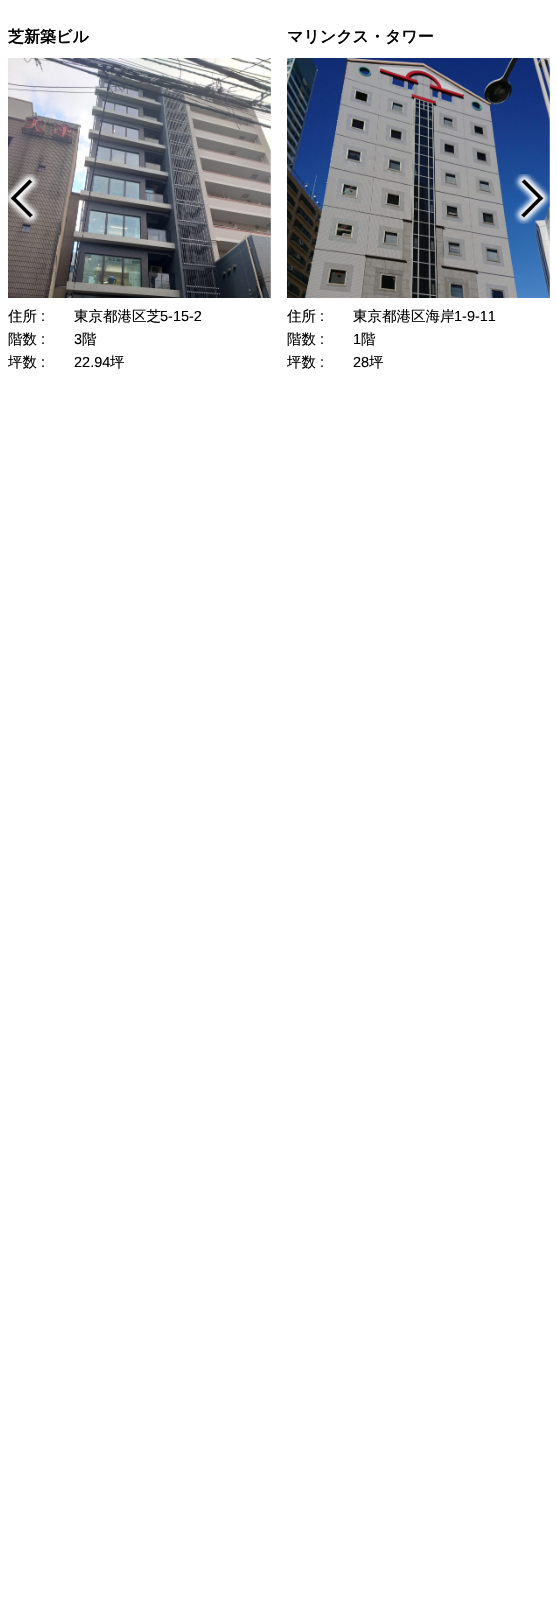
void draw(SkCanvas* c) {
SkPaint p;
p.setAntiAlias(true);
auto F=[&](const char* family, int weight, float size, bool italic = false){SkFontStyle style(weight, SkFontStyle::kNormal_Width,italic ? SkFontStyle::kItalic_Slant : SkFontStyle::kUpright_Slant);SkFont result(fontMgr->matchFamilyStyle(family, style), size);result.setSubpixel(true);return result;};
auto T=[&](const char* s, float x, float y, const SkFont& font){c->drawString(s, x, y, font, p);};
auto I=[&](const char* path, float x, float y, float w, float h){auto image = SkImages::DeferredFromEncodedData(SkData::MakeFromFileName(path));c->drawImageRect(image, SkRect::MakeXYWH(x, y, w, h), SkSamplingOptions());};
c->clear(0xffffffff);
auto f1 = F("WenQuanYi Zen Hei",700,16);
p.setColor(0xff000000);
T("芝新築ビル",8,42,f1);
I("1.png",8,58,263,240);
auto f2 = F("WenQuanYi Zen Hei",500,14.5);
T("住所",8,321,f2);
auto f3 = F("Liberation Sans",400,14.5);
T(":",41,321,f3);
T("東京都港区芝",74,321,f2);
T("5-15-2",160,321,f3);
T("階数",8,344,f2);
T(":",41,344,f3);
T("3",74,344,f3);
T("階",82,344,f2);
T("坪数",8,367,f2);
T(":",41,367,f3);
T("22.94",74,367,f3);
T("坪",110,367,f2);
T("マリンクス・タワー",287,42,f1);
I("2.png",287,58,263,240);
T("住所",287,321,f2);
T(":",320,321,f3);
T("東京都港区海岸",353,321,f2);
T("1-9-11",454,321,f3);
T("階数",287,344,f2);
T(":",320,344,f3);
T("1",353,344,f3);
T("階",361,344,f2);
T("坪数",287,367,f2);
T(":",320,367,f3);
T("28",353,367,f3);
T("坪",369,367,f2);
I("3.png",8,174,33,50);
I("4.png",513,174,37,50);
}
